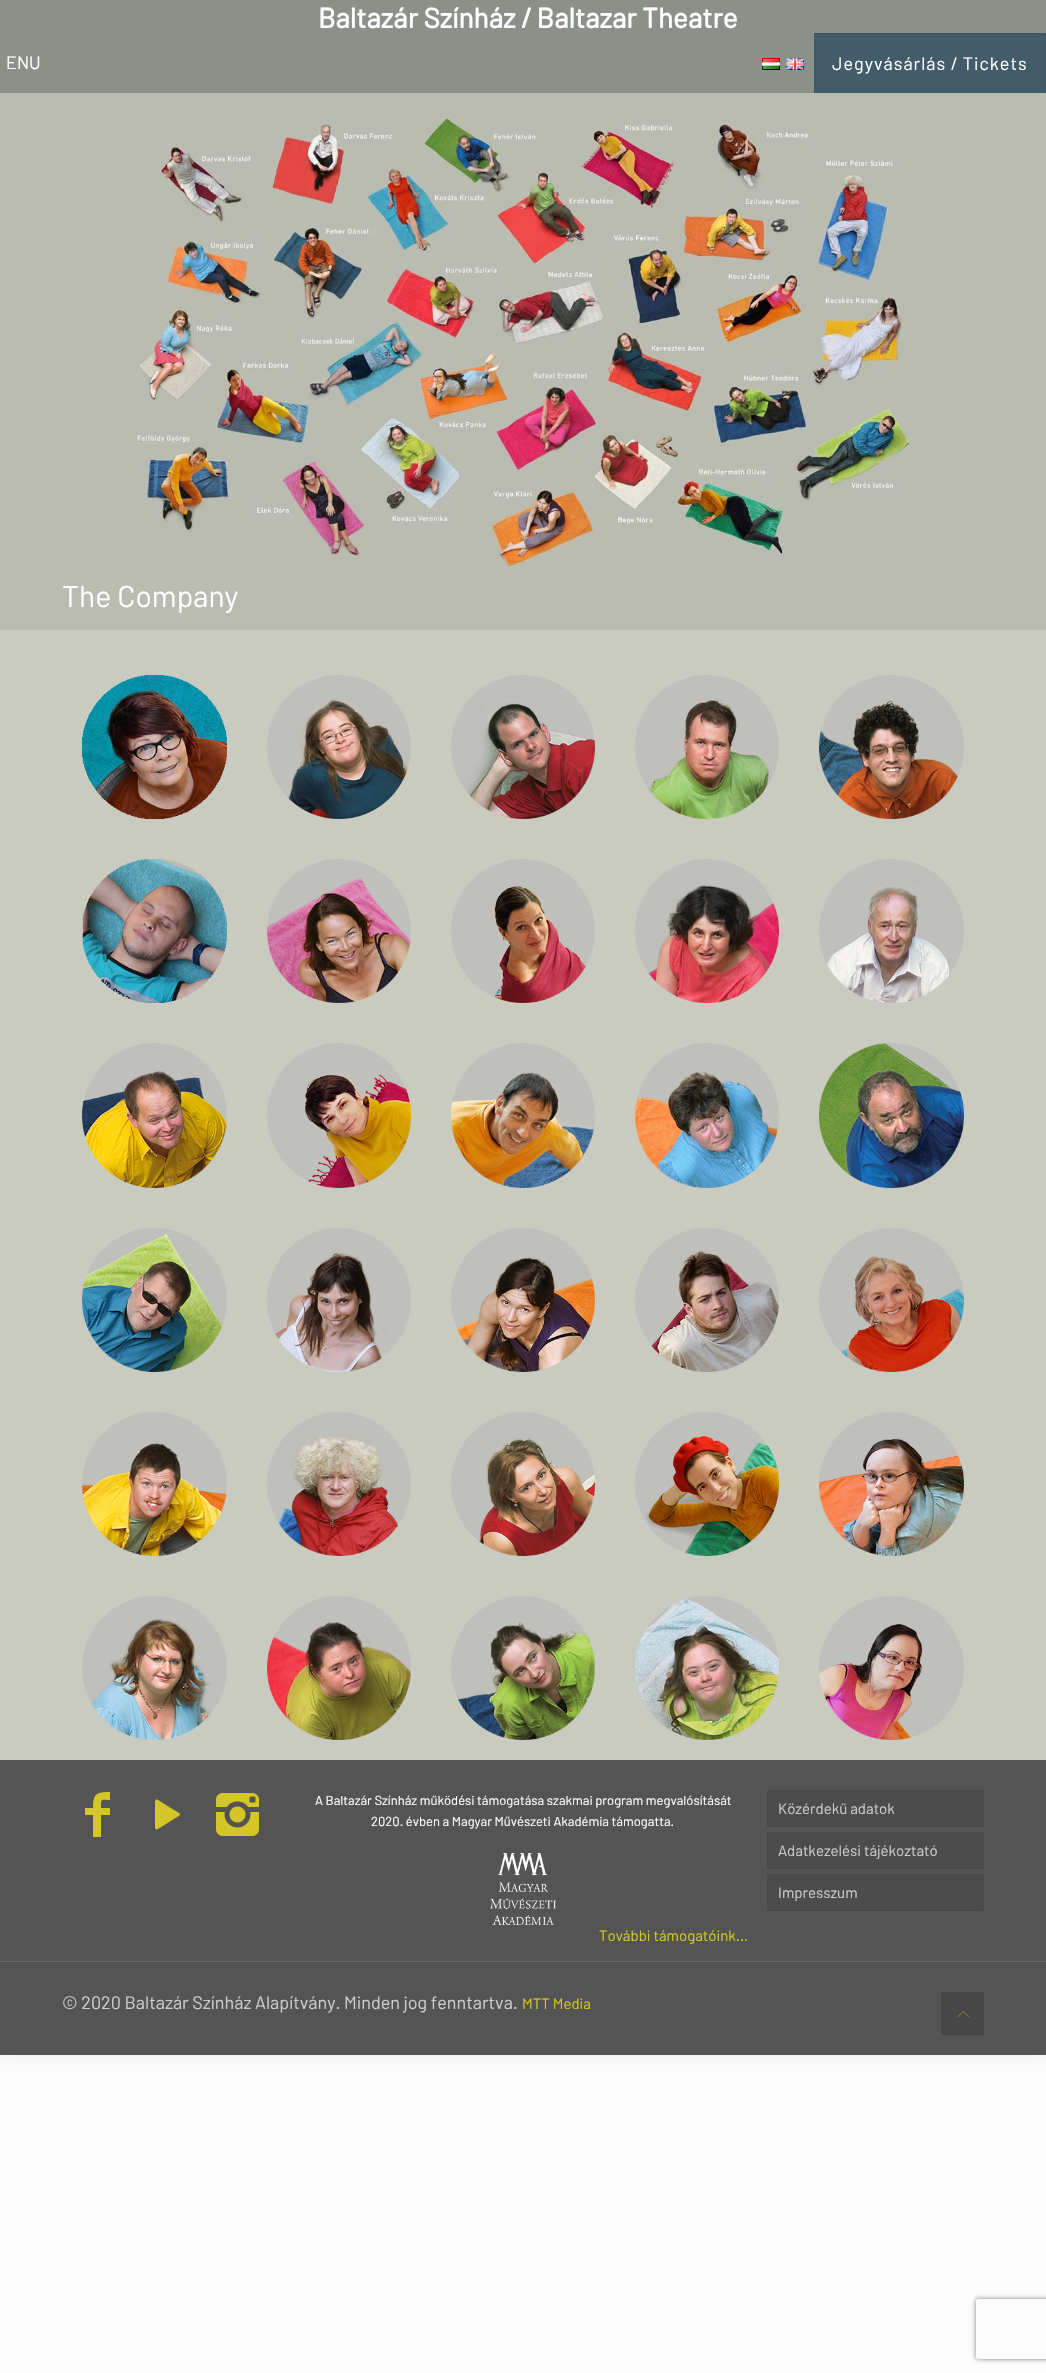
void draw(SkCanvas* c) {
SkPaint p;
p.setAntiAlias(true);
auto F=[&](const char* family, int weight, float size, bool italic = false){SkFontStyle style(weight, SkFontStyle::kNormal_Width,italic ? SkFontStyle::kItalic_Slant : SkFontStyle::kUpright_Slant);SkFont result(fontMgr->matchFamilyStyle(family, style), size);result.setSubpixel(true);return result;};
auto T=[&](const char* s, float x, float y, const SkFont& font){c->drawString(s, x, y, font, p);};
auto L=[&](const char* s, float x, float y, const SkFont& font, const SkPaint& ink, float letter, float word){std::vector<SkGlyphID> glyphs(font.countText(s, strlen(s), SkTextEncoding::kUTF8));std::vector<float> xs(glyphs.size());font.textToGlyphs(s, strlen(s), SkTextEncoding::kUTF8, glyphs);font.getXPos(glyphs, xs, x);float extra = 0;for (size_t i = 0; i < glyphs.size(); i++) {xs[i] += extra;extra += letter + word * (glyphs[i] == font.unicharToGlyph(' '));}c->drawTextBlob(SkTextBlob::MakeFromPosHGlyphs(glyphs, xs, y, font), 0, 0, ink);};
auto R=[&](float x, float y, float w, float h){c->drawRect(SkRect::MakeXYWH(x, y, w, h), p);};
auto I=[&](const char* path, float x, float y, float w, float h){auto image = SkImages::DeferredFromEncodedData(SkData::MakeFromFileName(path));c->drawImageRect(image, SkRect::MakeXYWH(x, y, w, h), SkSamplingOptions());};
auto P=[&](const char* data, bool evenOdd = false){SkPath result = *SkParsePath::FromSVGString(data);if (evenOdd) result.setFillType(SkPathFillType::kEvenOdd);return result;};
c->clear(0xfffcfcfc);
p.setColor(0x0f000000);
p.setMaskFilter(SkMaskFilter::MakeBlur(kNormal_SkBlurStyle, 7.5));
c->drawRect(SkRect::MakeXYWH(0,0,1046,2055),p);
p.setMaskFilter(nullptr);
p.setColor(0xff8b9189);
R(0,0,1046,93);
auto f1 = F("Barlow",700,28);
p.setColor(0xffffffff);
T("Baltazár Színház / Baltazar Theatre",318,28,f1);
auto f2 = F("Barlow",400,18);
T("ENU",6,69,f2);
I("1.png",762,58,18,12);
I("2.png",786,58,18,12);
p.setColor(0xff435c6a);
R(814,35,232,58);
p.setColor(0xff405765);
R(814,33,232,2);
p.setStroke(true);
p.setStrokeWidth(1);
p.setColor(0x08000000);
c->drawRect(SkRect::MakeXYWH(814.5,33.5,231,59),p);
p.setStroke(false);
p.setColor(0xffffffff);
L("Jegyvásárlás / Tickets",832,70,f2,p,1,0);
p.setColor(0xffc9cbc0);
R(0,630,1046,1130);
p.setColor(0xffbabcb1);
R(0,93,1046,537);
I("3.png",136,115,776,458);
auto f3 = F("Barlow",400,30);
p.setColor(0xffffffff);
T("The Company",62,607,f3);
I("4.png",82,675,145,144);
I("5.png",267,675,144,144);
I("6.png",451,675,144,144);
I("7.png",635,675,144,144);
I("8.png",819,675,145,144);
I("9.png",82,859,145,144);
I("10.png",267,859,144,144);
I("11.png",451,859,144,144);
I("12.png",635,859,144,144);
I("13.png",819,859,145,144);
I("14.png",82,1043,145,145);
I("15.png",267,1043,144,145);
I("16.png",451,1043,144,145);
I("17.png",635,1043,144,145);
I("18.png",819,1043,145,145);
I("19.png",82,1228,145,144);
I("20.png",267,1228,144,144);
I("21.png",451,1228,144,144);
I("22.png",635,1228,144,144);
I("23.png",819,1228,145,144);
I("24.png",82,1412,145,144);
I("25.png",267,1412,144,144);
I("26.png",451,1412,144,144);
I("27.png",635,1412,144,144);
I("28.png",819,1412,145,144);
I("29.png",82,1596,145,144);
I("30.png",267,1596,144,144);
I("31.png",451,1596,144,144);
I("32.png",635,1596,144,144);
I("33.png",819,1596,145,144);
p.setColor(0xff545454);
R(0,1760,1046,295);
p.setColor(0xffd4c627);
c->drawPath(P("M110 1800c-9 0-9-2-9 8h9v7h-9v22h-8v-22h-8v-7h8c0-15 4-16 17-16z"),p);
I("34.png",155,1799,25,31);
I("35.png",216,1793,43,43);
auto f4 = F("Barlow",400,13);
p.setColor(0xffffffff);
T("A Baltazár Színház működési támogatása szakmai program megvalósítását",315,1805,f4);
T("2020. évben a Magyar Művészeti Akadémia támogatta.",371,1826,f4);
I("36.png",490,1853,66,72);
auto f5 = F("Barlow",400,15);
p.setColor(0xffd4c627);
T("További támogatóink...",599,1941,f5);
p.setColor(0xff4c4c4c);
c->drawRect(SkRect::MakeXYWH(767.5,1790.5,216,36),p);
p.setStroke(true);
p.setColor(0xff494949);
c->drawRect(SkRect::MakeXYWH(767.5,1790.5,216,36),p);
p.setStroke(false);
p.setColor(0xffcccccc);
T("Közérdekű adatok",778,1814,f5);
p.setColor(0xff4c4c4c);
c->drawRect(SkRect::MakeXYWH(767.5,1832.5,216,36),p);
p.setStroke(true);
p.setColor(0xff494949);
c->drawRect(SkRect::MakeXYWH(767.5,1832.5,216,36),p);
p.setStroke(false);
p.setColor(0xffcccccc);
T("Adatkezelési tájékoztató",778,1856,f5);
p.setColor(0xff4c4c4c);
c->drawRect(SkRect::MakeXYWH(767.5,1874.5,216,36),p);
p.setStroke(true);
p.setColor(0xff494949);
c->drawRect(SkRect::MakeXYWH(767.5,1874.5,216,36),p);
p.setStroke(false);
p.setColor(0xffcccccc);
T("Impresszum",778,1898,f5);
p.setColor(0xff656565);
R(0,1961,1046,1);
p.setColor(0xffcccccc);
T("© 2020 Baltazár Színház Alapítvány. Minden jog fenntartva.",62,2009,f2);
p.setColor(0xffd4c627);
T("MTT Media",522,2009,f5);
p.setColor(0xff474747);
R(941,1992,43,43);
I("37.png",957,2011,13,7);
c->save();
c->clipPath(P("M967 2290h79v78h-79zm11 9h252c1 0 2 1 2 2v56c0 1-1 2-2 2h-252c-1 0-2-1-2-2v-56c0-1 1-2 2-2z",true),true);
p.setColor(0xff808080);
p.setMaskFilter(SkMaskFilter::MakeBlur(kNormal_SkBlurStyle, 2.5));
c->drawRoundRect(SkRect::MakeXYWH(976,2299,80,60),2,2,p);
p.setMaskFilter(nullptr);
c->restore();
}
